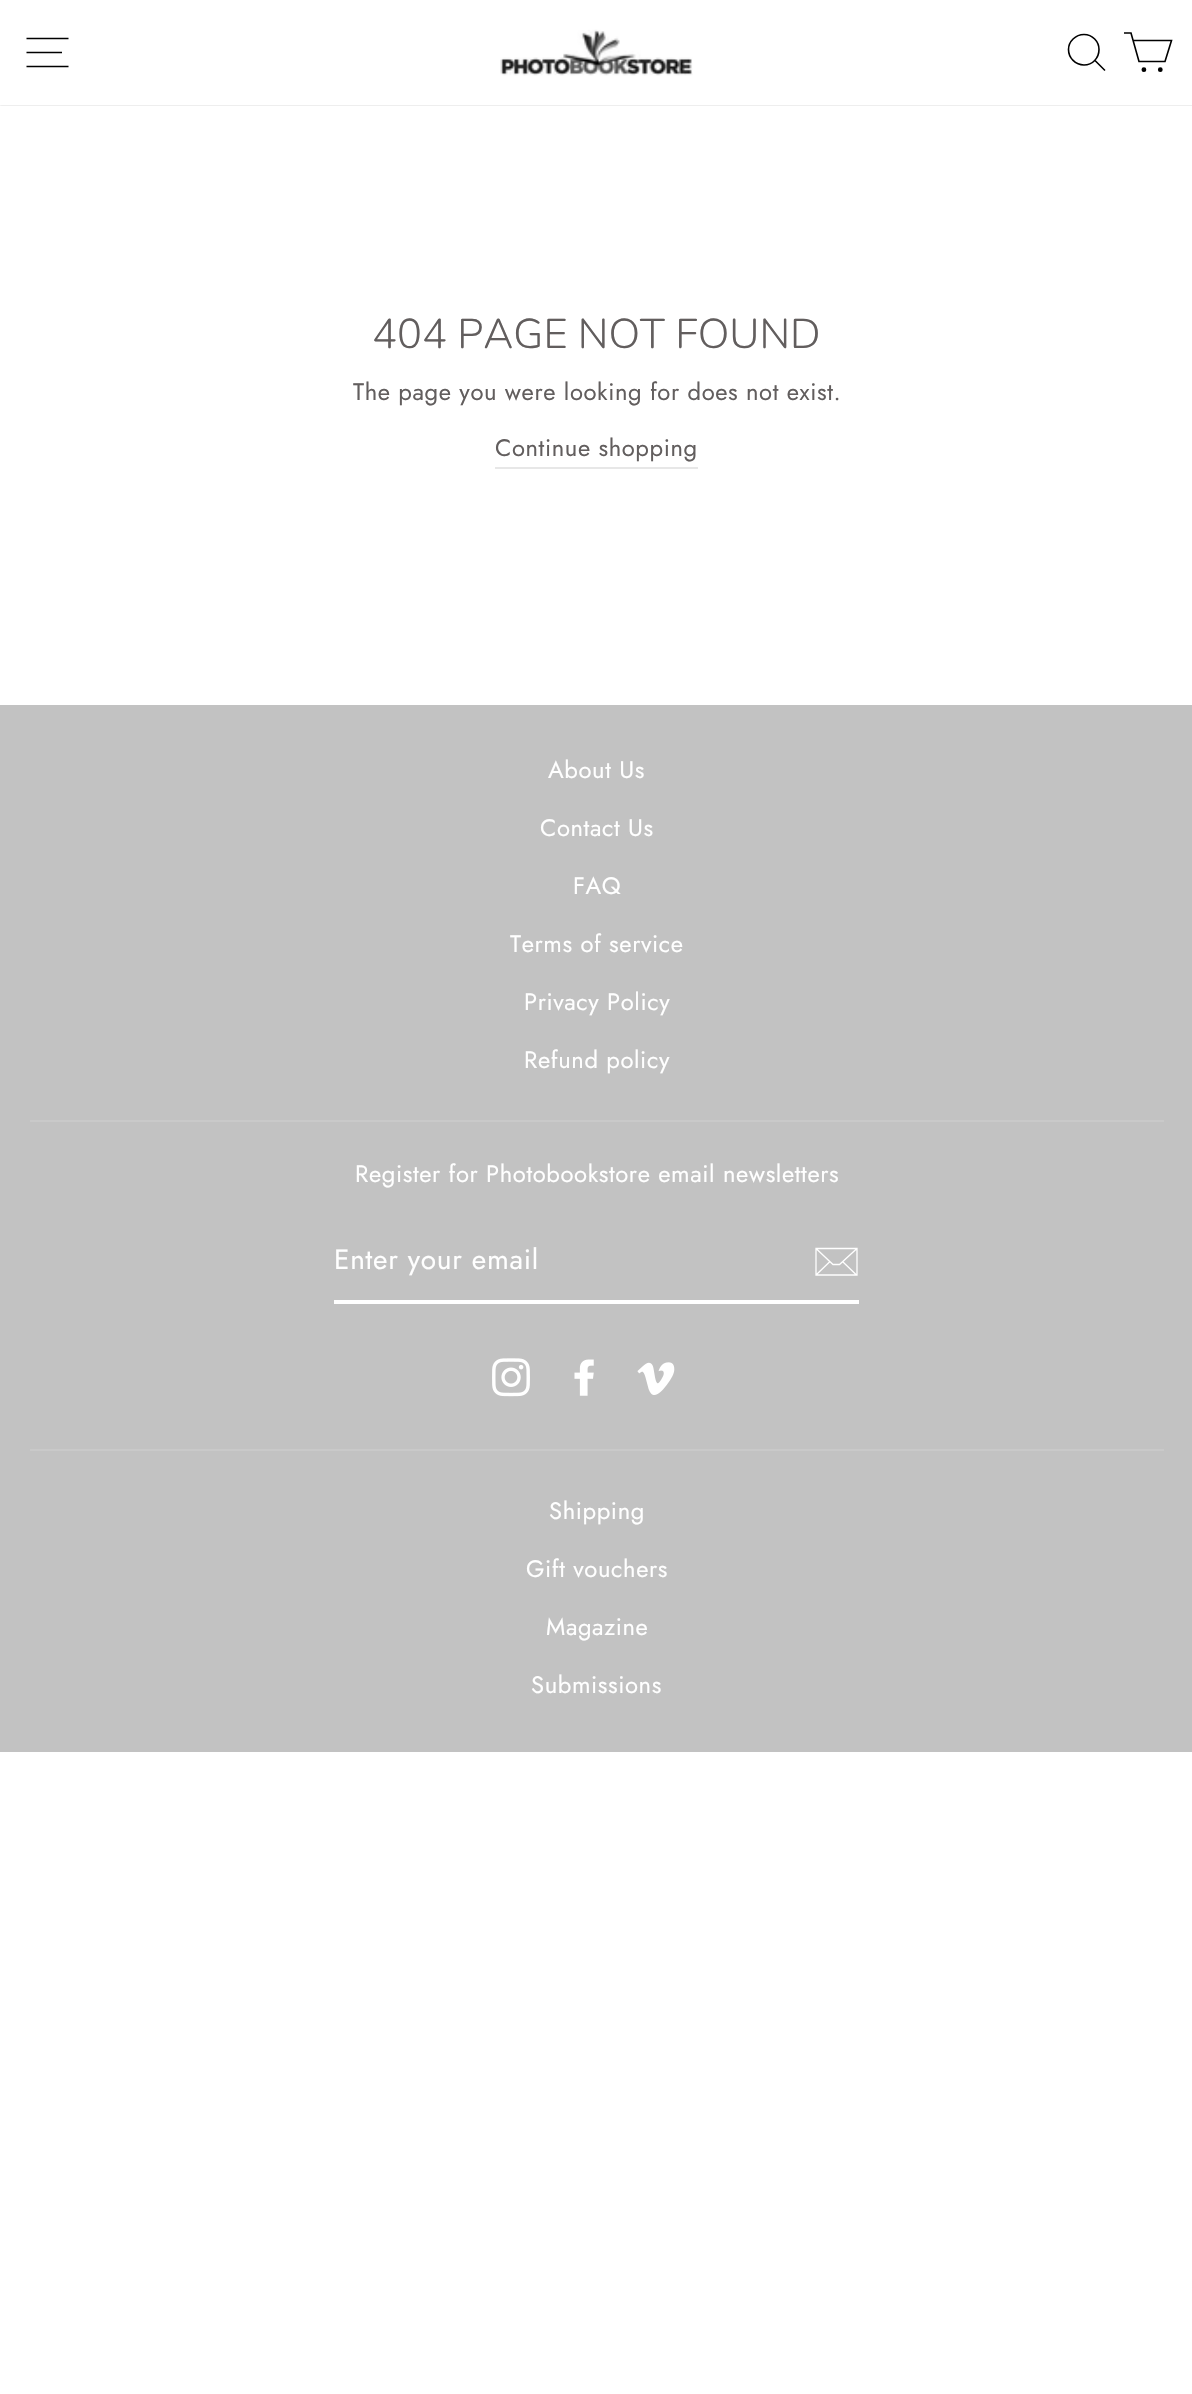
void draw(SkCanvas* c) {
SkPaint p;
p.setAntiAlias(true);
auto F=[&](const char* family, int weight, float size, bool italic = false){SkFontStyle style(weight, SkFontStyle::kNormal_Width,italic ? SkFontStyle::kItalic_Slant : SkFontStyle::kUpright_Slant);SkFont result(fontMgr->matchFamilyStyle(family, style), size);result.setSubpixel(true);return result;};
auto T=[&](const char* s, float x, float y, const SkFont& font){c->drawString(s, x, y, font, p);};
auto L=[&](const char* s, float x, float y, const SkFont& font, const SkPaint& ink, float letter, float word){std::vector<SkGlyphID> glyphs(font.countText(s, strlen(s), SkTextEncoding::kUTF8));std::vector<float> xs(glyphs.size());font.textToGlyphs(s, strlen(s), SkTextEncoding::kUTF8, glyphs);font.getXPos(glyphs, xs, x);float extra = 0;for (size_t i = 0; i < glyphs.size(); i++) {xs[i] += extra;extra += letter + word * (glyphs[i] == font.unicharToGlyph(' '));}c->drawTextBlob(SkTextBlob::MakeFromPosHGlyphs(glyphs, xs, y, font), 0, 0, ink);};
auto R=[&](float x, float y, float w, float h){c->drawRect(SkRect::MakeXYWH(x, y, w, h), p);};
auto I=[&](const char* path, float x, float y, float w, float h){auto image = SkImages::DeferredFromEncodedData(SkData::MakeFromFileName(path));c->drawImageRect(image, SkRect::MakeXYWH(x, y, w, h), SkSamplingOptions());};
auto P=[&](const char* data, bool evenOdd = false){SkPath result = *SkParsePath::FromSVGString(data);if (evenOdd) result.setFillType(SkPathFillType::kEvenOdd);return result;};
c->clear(0xffffffff);
c->save();
c->clipRect(SkRect::MakeXYWH(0,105,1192,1));
p.setColor(0x33000000);
p.setMaskFilter(SkMaskFilter::MakeBlur(kNormal_SkBlurStyle, 1));
c->drawRect(SkRect::MakeXYWH(0,0,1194,105),p);
p.setMaskFilter(nullptr);
c->restore();
p.setStroke(true);
p.setStrokeWidth(1.6);
p.setColor(0xff000000);
c->drawPath(P("M26.5 38.5h42m-42 14h35.5m-35.5 14h42"),p);
I("1.png",500,29,193,47);
c->drawPath(P("M1099 49.5c0 8.5-6.5 15.5-15 15.5c-8.5 0-15.5-7-15.5-15.5c0-8 7-15 15.5-15c8.5 0 15 7 15 15zm6 21l-10-10"),p);
c->drawPath(P("M1133 40.5h38.5l-6.5 21h-26l-8-28.5h-7"),p);
p.setStroke(false);
c->drawCircle(1143.9,69.7,1.6,p);
p.setStroke(true);
c->drawCircle(1143.9,69.7,1.6,p);
p.setStroke(false);
c->drawCircle(1160.3,69.7,1.6,p);
p.setStroke(true);
c->drawCircle(1160.3,69.7,1.6,p);
auto f1 = F("Nunito",300,41.6);
p.setStroke(false);
p.setColor(0xff625e5e);
T("404 PAGE NOT FOUND",372,348,f1);
auto f2 = F("Jost",400,23.8);
L("The page you were looking for does not exist.",353,400,f2,p,.6,0);
p.setColor(0xffe7e7e7);
R(495,467,203,2);
p.setColor(0xff625e5e);
L("Continue shopping",495,456,f2,p,.6,0);
p.setColor(0xffc2c2c2);
R(0,705,1192,1047);
p.setColor(0xffffffff);
L("About Us",548,778,f2,p,.6,0);
L("Contact Us",540,836,f2,p,.6,0);
L("FAQ",573,894,f2,p,.6,0);
L("Terms of service",510,952,f2,p,.6,0);
L("Privacy Policy",524,1010,f2,p,.6,0);
L("Refund policy",524,1068,f2,p,.6,0);
p.setColor(0xffc9c9c9);
R(30,1120,1134,2);
p.setColor(0xffffffff);
L("Register for Photobookstore email newsletters",355,1182,f2,p,.6,0);
R(334,1300,525,4);
auto f3 = F("Jost",400,28);
L("Enter your email",334,1269,f3,p,.75,0);
p.setStroke(true);
p.setStrokeWidth(1.3);
c->drawPath(P("M857 1275h-41v-26.5h41zm-41-26.5l17 16h6.5l17.5-16m-27 13l-13.5 13m40 .5l-14-13.5"),p);
I("2.png",492,1358,38,39);
I("3.png",574,1359,20,37);
I("4.png",637,1362,38,33);
p.setStroke(false);
p.setColor(0xffc9c9c9);
R(30,1449,1134,2);
p.setColor(0xffffffff);
L("Shipping",549,1519,f2,p,.6,0);
L("Gift vouchers",526,1577,f2,p,.6,0);
L("Magazine",546,1635,f2,p,.6,0);
L("Submissions",531,1693,f2,p,.6,0);
}
